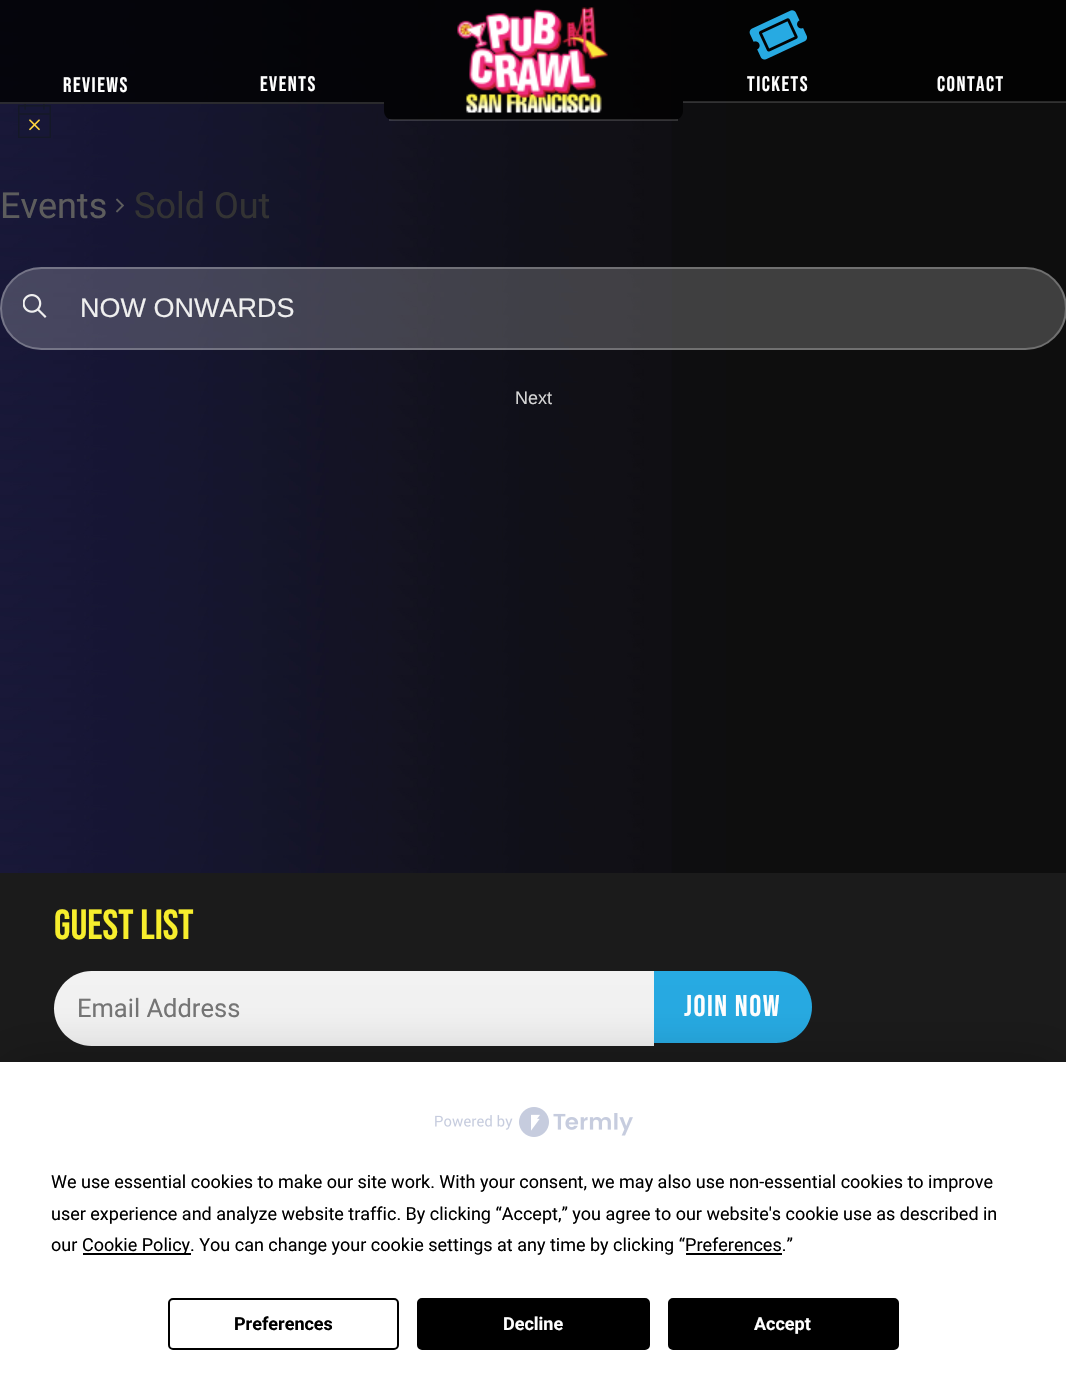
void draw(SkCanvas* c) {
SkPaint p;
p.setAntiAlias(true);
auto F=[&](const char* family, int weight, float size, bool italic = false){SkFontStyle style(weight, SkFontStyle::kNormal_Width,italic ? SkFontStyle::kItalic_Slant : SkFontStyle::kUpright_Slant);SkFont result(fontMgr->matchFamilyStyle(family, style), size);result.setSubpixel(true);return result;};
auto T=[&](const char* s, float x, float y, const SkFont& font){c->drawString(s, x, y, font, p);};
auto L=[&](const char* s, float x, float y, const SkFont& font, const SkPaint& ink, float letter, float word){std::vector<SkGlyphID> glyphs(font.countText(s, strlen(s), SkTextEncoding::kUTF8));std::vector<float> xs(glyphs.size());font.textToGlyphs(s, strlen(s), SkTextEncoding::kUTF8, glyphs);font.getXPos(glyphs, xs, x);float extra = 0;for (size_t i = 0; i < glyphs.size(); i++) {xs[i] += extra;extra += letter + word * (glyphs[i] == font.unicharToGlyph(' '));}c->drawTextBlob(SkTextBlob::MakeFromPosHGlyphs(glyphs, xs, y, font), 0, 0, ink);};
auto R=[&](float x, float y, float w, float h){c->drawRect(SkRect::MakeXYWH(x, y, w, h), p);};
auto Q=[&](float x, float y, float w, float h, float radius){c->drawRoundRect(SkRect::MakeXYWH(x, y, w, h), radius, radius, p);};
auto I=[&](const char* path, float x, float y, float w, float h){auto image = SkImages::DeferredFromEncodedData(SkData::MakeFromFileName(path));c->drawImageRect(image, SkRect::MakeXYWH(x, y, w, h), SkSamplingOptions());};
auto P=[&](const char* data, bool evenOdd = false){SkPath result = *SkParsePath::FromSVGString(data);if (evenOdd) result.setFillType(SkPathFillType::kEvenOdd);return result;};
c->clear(0xffffffff);
I("1.png",0,0,1066,873);
I("4.png",18,102,33,36);
p.setColor(0xcc000000);
R(0,0,192,104);
p.setColor(0x26ffffff);
R(0,102,192,2);
auto f1 = F("Bebas Neue",400,21);
p.setColor(0xffffffff);
L("REVIEWS",63,92,f1,p,1.5,0);
p.setColor(0xcc000000);
R(192,0,192,104);
p.setColor(0x26ffffff);
R(192,102,192,2);
p.setColor(0xffffffff);
L("EVENTS",260,91,f1,p,1.5,0);
p.setColor(0xcc000000);
c->drawPath(P("M384-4h299v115c0 5-4 9-9 9h-281c-5 0-9-4-9-9z"),p);
p.setColor(0x26ffffff);
R(389,119,289,2);
I("2.png",457,7,151,106);
p.setColor(0xcc000000);
R(683,0,192,102);
p.setColor(0x26ffffff);
R(683,101,192,2);
I("3.png",749,10,58,50);
p.setColor(0xffffffff);
L("TICKETS",747,91,f1,p,1.5,0);
p.setColor(0xff030303);
R(875,0,191,102);
p.setColor(0x26ffffff);
R(875,101,191,2);
p.setColor(0xffffffff);
L("CONTACT",937,91,f1,p,1.5,0);
auto f2 = F("Roboto",400,36);
p.setColor(0xff5d5d5d);
T("Events",0,218,f2);
I("5.png",116,198,8,15);
p.setColor(0xff333333);
T("Sold Out",134,218,f2);
p.setColor(0x33ffffff);
Q(0,267,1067,83,41.5);
p.setStroke(true);
p.setStrokeWidth(2);
p.setColor(0x40ffffff);
c->drawRoundRect(SkRect::MakeXYWH(1,268,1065,81),40.5,40.5,p);
I("6.png",23,294,24,24);
auto f3 = F("Liberation Sans",400,27);
p.setStroke(false);
p.setColor(0xffefefef);
T("NOW ONWARDS",80,317,f3);
auto f4 = F("Liberation Sans",400,18);
p.setColor(0xffd5d5d5);
T("Next",515,404,f4);
p.setColor(0xff1b1b1b);
R(0,873,1066,189);
auto f5 = F("Bebas Neue",400,42);
p.setColor(0xfff7ee2d);
T("GUEST LIST",54,939,f5);
p.setColor(0xfff2f2f2);
c->drawPath(P("M91.5 971h562.5v75h-562.5c-20.5 0-37.5-17-37.5-37.5c0-20.5 17-37.5 37.5-37.5z"),p);
auto f6 = F("Roboto",400,25.5);
p.setColor(0xff757575);
T("Email Address",77,1017,f6);
p.setColor(0xff27aae2);
c->drawPath(P("M654 971h122c20 0 36 16 36 36c0 20-16 36-36 36h-122z"),p);
auto f7 = F("Bebas Neue",400,30);
p.setColor(0xffffffff);
L("JOIN NOW",684,1016,f7,p,1.5,0);
p.setColor(0x40000000);
p.setMaskFilter(SkMaskFilter::MakeBlur(kNormal_SkBlurStyle, 26));
c->drawRect(SkRect::MakeXYWH(0,1062,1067,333),p);
p.setMaskFilter(nullptr);
p.setColor(0xffffffff);
R(0,1062,1066,332);
I("7.png",435,1107,198,30);
auto f8 = F("Roboto",400,18);
p.setColor(0xff000000);
T("We use essential cookies to make our site work. With your consent, we may also use non-essential cookies to improve",51,1188,f8);
T("user experience and analyze website traffic. By clicking “Accept,” you agree to our website's cookie use as described in",51,1220,f8);
T("our",51,1251,f8);
R(83,1253,108,2);
T("Cookie Policy. You can change your cookie settings at any time by clicking “Preferences.”",82,1251,f8);
R(686,1253,96,2);
p.setStroke(true);
c->drawRoundRect(SkRect::MakeXYWH(169,1299,229,50),4,4,p);
auto f9 = F("Roboto",700,18);
p.setStroke(false);
T("Preferences",234,1330,f9);
c->drawRoundRect(SkRect::MakeXYWH(418,1299,231,50),4,4,p);
p.setStroke(true);
c->drawRoundRect(SkRect::MakeXYWH(418,1299,231,50),4,4,p);
p.setStroke(false);
p.setColor(0xffffffff);
T("Decline",503,1330,f9);
p.setColor(0xff000000);
c->drawRoundRect(SkRect::MakeXYWH(669,1299,229,50),4,4,p);
p.setStroke(true);
c->drawRoundRect(SkRect::MakeXYWH(669,1299,229,50),4,4,p);
p.setStroke(false);
p.setColor(0xffffffff);
T("Accept",754,1330,f9);
}
